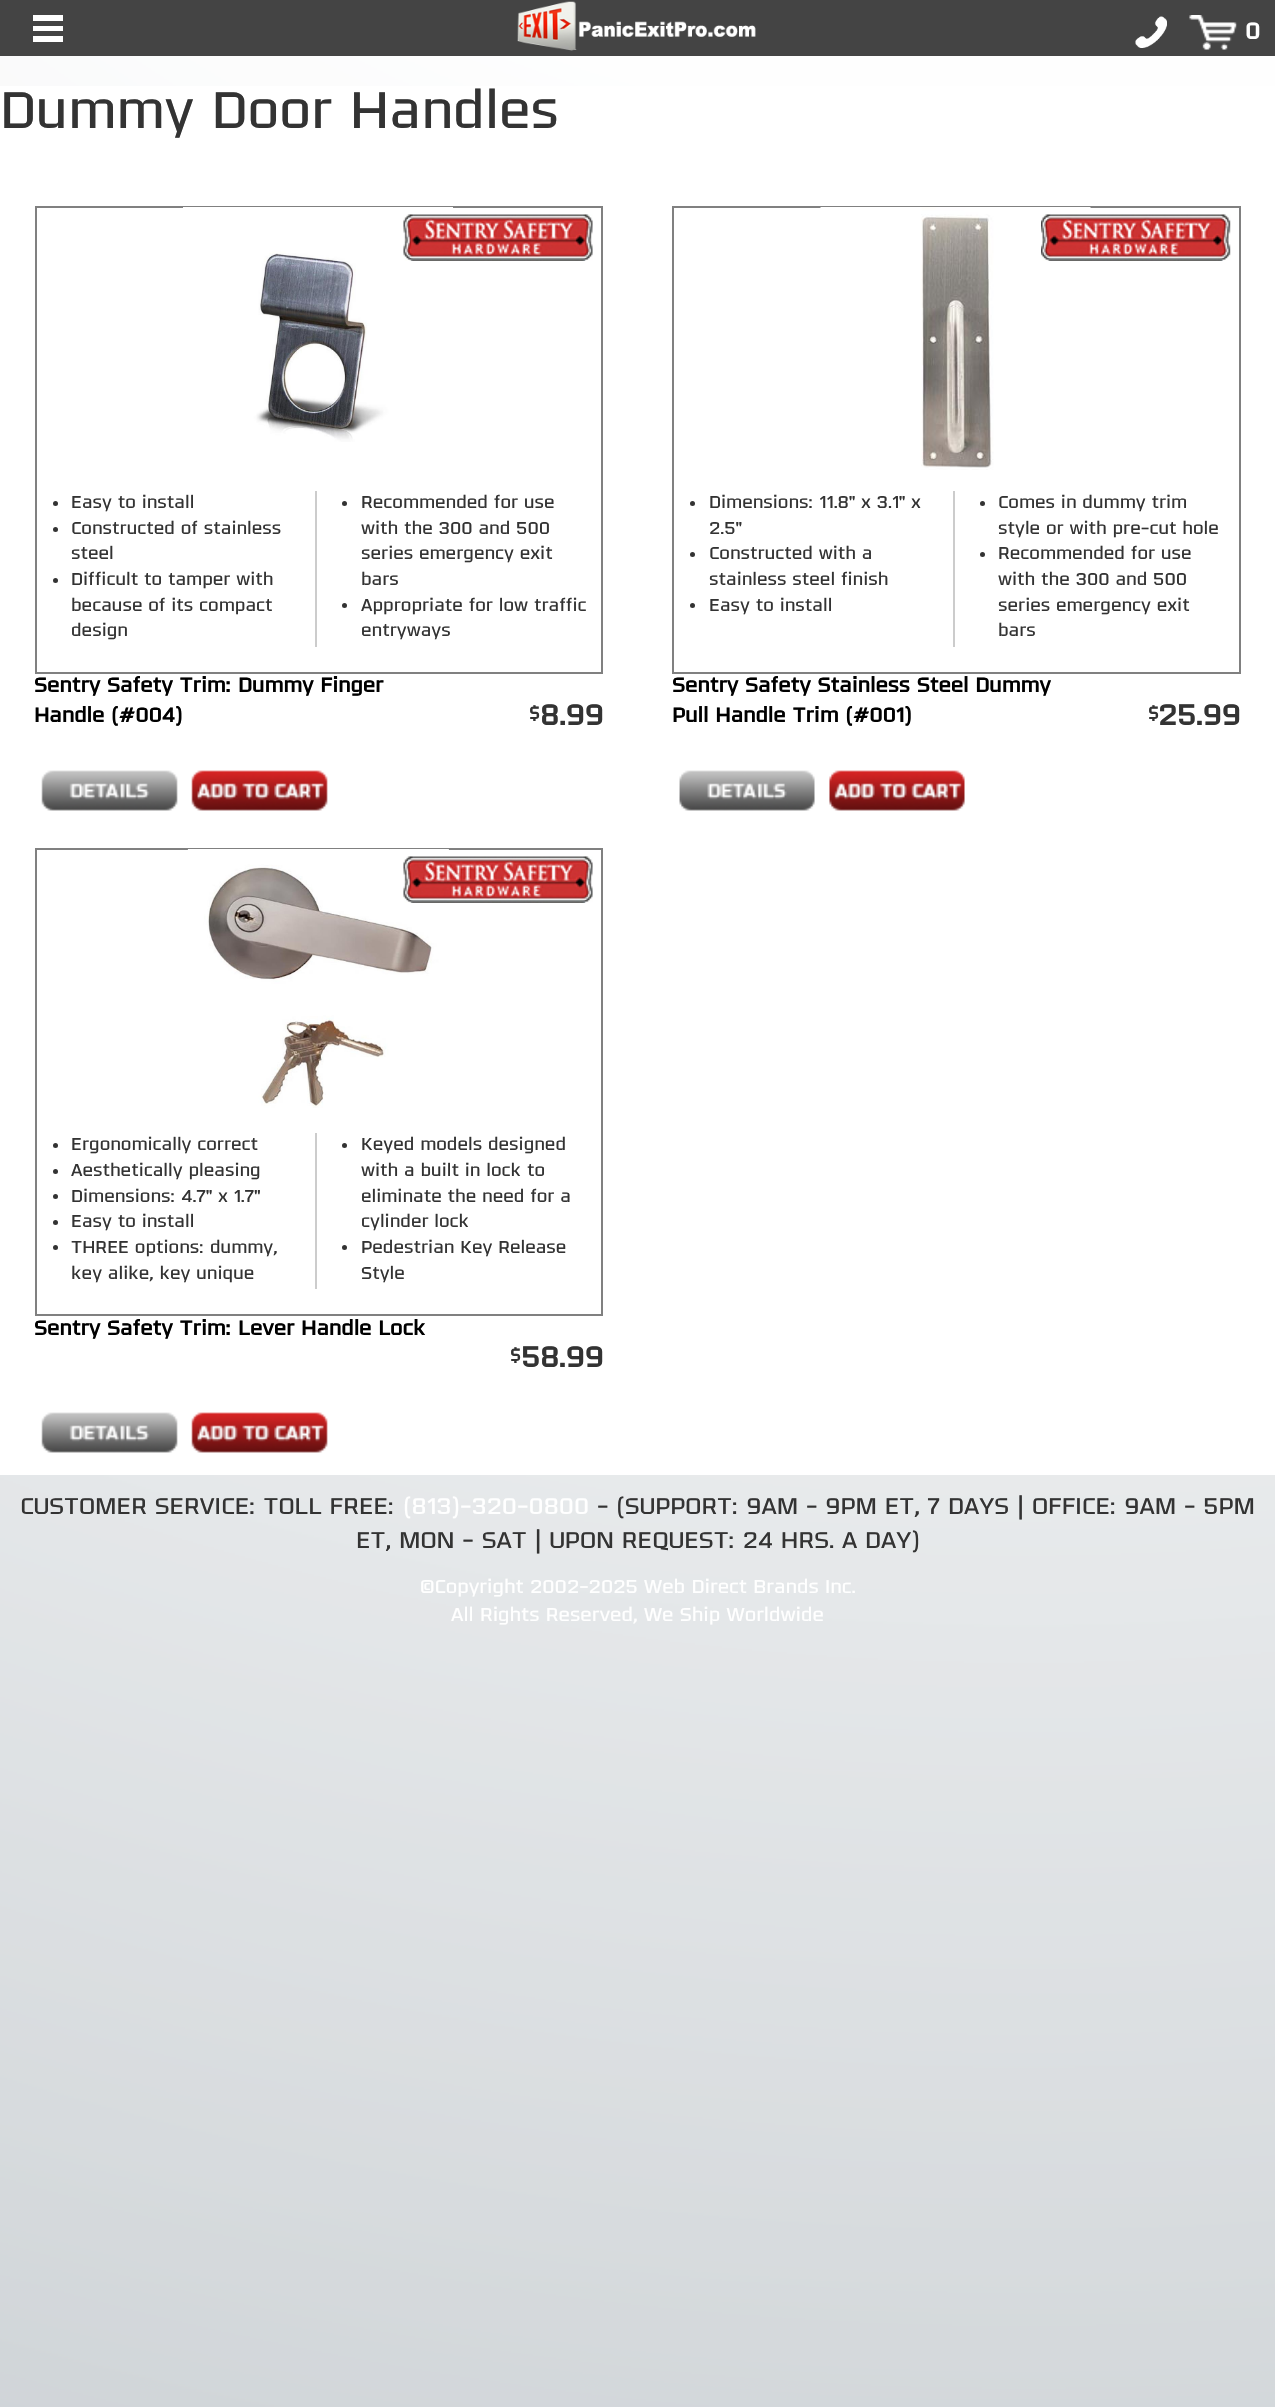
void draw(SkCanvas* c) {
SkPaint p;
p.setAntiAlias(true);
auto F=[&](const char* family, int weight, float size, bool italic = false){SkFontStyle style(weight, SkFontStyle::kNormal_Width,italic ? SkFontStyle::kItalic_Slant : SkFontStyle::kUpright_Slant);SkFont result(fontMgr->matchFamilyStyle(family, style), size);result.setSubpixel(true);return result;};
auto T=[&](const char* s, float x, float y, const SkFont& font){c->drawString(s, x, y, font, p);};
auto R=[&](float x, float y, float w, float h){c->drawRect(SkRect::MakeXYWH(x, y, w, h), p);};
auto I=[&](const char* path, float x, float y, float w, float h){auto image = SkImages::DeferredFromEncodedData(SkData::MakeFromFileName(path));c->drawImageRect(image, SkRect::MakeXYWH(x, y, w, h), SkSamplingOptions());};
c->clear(0xffffffff);
I("1.png",0,56,1275,2351);
p.setColor(0xff444444);
R(0,0,1275,56);
{
const SkColor colors[] = {0xff444444,0xff444444,0xffffffff,0xffffffff,0xff444444,0xff444444};
const float stops[] = {0,.39,.39,.61,.61,1};
const SkPoint ends[] = {{48,42}, {48,15}};
p.setShader(SkGradientShader::MakeLinear(ends, colors, stops, 6, SkTileMode::kClamp));
p.setAlpha(255);
}
R(33,26,30,5);
p.setShader(nullptr);
p.setColor(0xffffffff);
R(33,15,30,6);
R(33,36,30,6);
I("2.png",517,1,239,50);
I("3.png",1135,16,32,32);
I("4.png",1189,15,48,35);
auto f1 = F("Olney",700,24);
T("0",1245,39,f1);
R(0,86,1275,1389);
auto f2 = F("Olney",300,54);
p.setColor(0xff333333);
T("Dummy Door Handles",0,128,f2);
p.setStroke(true);
p.setStrokeWidth(2);
p.setColor(0xff808080);
c->drawRect(SkRect::MakeXYWH(36,207,566,466),p);
I("5.png",183,207,270,235);
I("6.png",403,214,190,47);
p.setStroke(false);
p.setColor(0xffcccccc);
R(315,491,2,156);
p.setColor(0xff333333);
c->drawCircle(55.5,503.5,2.5,p);
auto f3 = F("Olney",300,18);
T("Easy to install",71,508,f3);
c->drawCircle(55.5,529.5,2.5,p);
T("Constructed of stainless",71,534,f3);
T("steel",71,559,f3);
c->drawCircle(55.5,580.5,2.5,p);
T("Difficult to tamper with",71,585,f3);
T("because of its compact",71,611,f3);
T("design",71,636,f3);
c->drawCircle(344.5,503.5,2.5,p);
T("Recommended for use",361,508,f3);
T("with the 300 and 500",361,534,f3);
T("series emergency exit",361,559,f3);
T("bars",361,585,f3);
c->drawCircle(344.5,605.5,2.5,p);
T("Appropriate for low traffic",361,611,f3);
T("entryways",361,636,f3);
auto f4 = F("Olney",700,21);
p.setColor(0xff000000);
T("Sentry Safety Trim: Dummy Finger",34,692,f4);
T("Handle (#004)",34,722,f4);
auto f5 = F("Olney",700,18);
p.setColor(0xff333333);
T("$",529,719,f5);
auto f6 = F("Olney",700,30);
T("8.99",540,725,f6);
I("7.png",41,770,137,41);
I("8.png",191,770,137,41);
p.setStroke(true);
p.setColor(0xff808080);
c->drawRect(SkRect::MakeXYWH(673,207,567,466),p);
I("9.png",820,207,271,263);
I("10.png",1041,214,190,47);
p.setStroke(false);
p.setColor(0xffcccccc);
R(953,491,2,156);
p.setColor(0xff333333);
c->drawCircle(692.5,503.5,2.5,p);
T("Dimensions: 11.8\" x 3.1\" x",709,508,f3);
T("2.5\"",709,534,f3);
c->drawCircle(692.5,554.5,2.5,p);
T("Constructed with a",709,559,f3);
T("stainless steel finish",709,585,f3);
c->drawCircle(692.5,605.5,2.5,p);
T("Easy to install",709,611,f3);
c->drawCircle(982.5,503.5,2.5,p);
T("Comes in dummy trim",998,508,f3);
T("style or with pre-cut hole",998,534,f3);
c->drawCircle(982.5,554.5,2.5,p);
T("Recommended for use",998,559,f3);
T("with the 300 and 500",998,585,f3);
T("series emergency exit",998,611,f3);
T("bars",998,636,f3);
p.setColor(0xff000000);
T("Sentry Safety Stainless Steel Dummy",672,692,f4);
T("Pull Handle Trim (#001)",672,722,f4);
p.setColor(0xff333333);
T("$",1148,719,f5);
T("25.99",1158,725,f6);
I("11.png",679,770,136,41);
I("12.png",829,770,136,41);
p.setStroke(true);
p.setColor(0xff808080);
c->drawRect(SkRect::MakeXYWH(36,849,566,466),p);
I("13.png",187,849,262,259);
I("6.png",403,856,190,47);
p.setStroke(false);
p.setColor(0xffcccccc);
R(315,1133,2,156);
p.setColor(0xff333333);
c->drawCircle(55.5,1145.5,2.5,p);
T("Ergonomically correct",71,1150,f3);
c->drawCircle(55.5,1171.5,2.5,p);
T("Aesthetically pleasing",71,1176,f3);
c->drawCircle(55.5,1196.5,2.5,p);
T("Dimensions: 4.7\" x 1.7\"",71,1202,f3);
c->drawCircle(55.5,1222.5,2.5,p);
T("Easy to install",71,1227,f3);
c->drawCircle(55.5,1247.5,2.5,p);
T("THREE options: dummy,",71,1253,f3);
T("key alike, key unique",71,1279,f3);
c->drawCircle(344.5,1145.5,2.5,p);
T("Keyed models designed",361,1150,f3);
T("with a built in lock to",361,1176,f3);
T("eliminate the need for a",361,1202,f3);
T("cylinder lock",361,1227,f3);
c->drawCircle(344.5,1247.5,2.5,p);
T("Pedestrian Key Release",361,1253,f3);
T("Style",361,1279,f3);
p.setColor(0xff000000);
T("Sentry Safety Trim: Lever Handle Lock",34,1335,f4);
p.setColor(0xff333333);
T("$",510,1361,f5);
T("58.99",521,1367,f6);
I("7.png",41,1412,137,41);
I("8.png",191,1412,137,41);
auto f7 = F("Olney",300,24);
T("CUSTOMER SERVICE: TOLL FREE:",20,1514,f7);
p.setColor(0xffffffff);
T("(813)-320-0800",403,1514,f7);
p.setColor(0xff333333);
T("- (SUPPORT: 9AM - 9PM ET, 7 DAYS | OFFICE: 9AM - 5PM",597,1514,f7);
T("ET, MON - SAT | UPON REQUEST: 24 HRS. A DAY)",356,1548,f7);
auto f8 = F("Olney",300,19.5);
p.setColor(0xffffffff);
T("©Copyright 2002-2025 Web Direct Brands Inc.",420,1593,f8);
T("All Rights Reserved, We Ship Worldwide",451,1621,f8);
}
